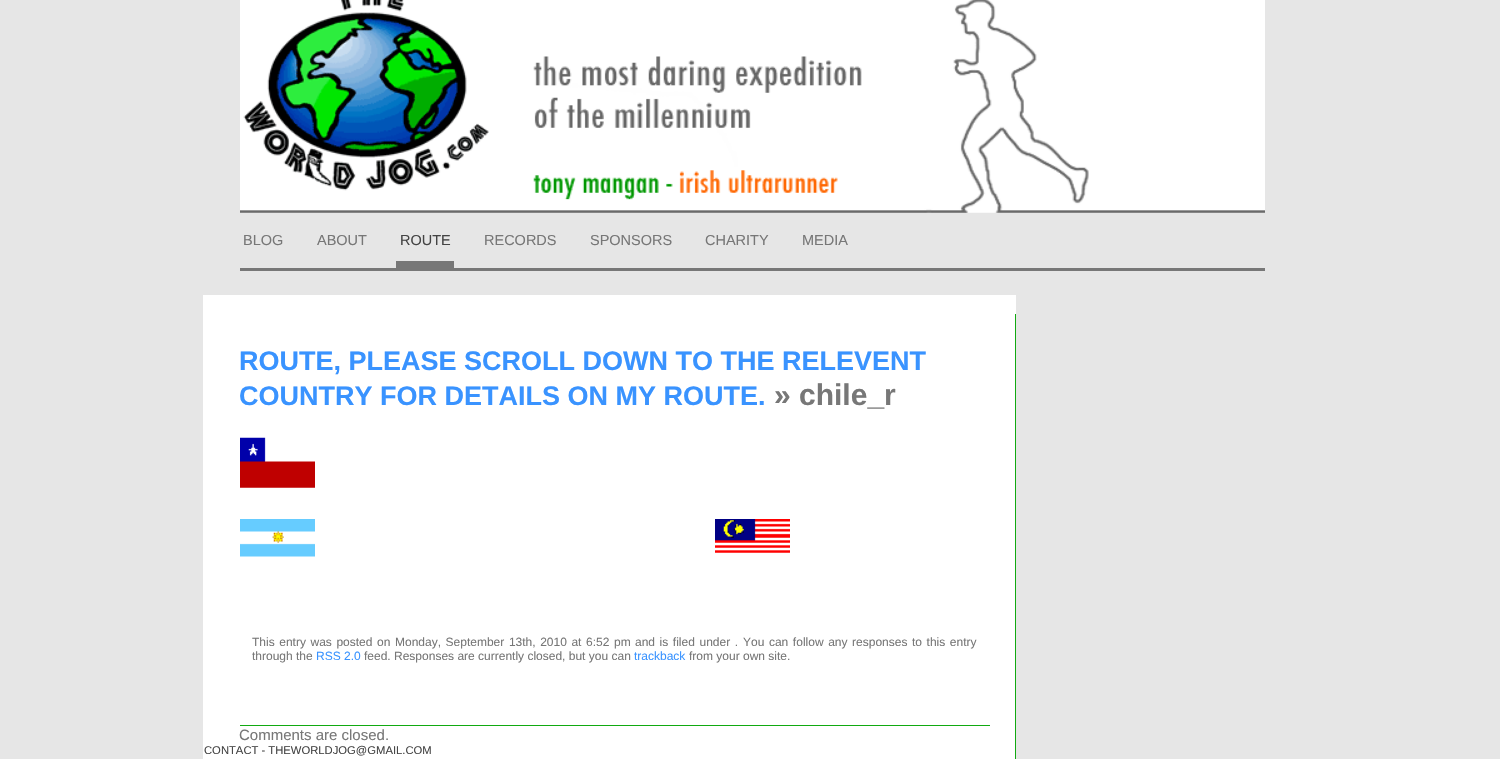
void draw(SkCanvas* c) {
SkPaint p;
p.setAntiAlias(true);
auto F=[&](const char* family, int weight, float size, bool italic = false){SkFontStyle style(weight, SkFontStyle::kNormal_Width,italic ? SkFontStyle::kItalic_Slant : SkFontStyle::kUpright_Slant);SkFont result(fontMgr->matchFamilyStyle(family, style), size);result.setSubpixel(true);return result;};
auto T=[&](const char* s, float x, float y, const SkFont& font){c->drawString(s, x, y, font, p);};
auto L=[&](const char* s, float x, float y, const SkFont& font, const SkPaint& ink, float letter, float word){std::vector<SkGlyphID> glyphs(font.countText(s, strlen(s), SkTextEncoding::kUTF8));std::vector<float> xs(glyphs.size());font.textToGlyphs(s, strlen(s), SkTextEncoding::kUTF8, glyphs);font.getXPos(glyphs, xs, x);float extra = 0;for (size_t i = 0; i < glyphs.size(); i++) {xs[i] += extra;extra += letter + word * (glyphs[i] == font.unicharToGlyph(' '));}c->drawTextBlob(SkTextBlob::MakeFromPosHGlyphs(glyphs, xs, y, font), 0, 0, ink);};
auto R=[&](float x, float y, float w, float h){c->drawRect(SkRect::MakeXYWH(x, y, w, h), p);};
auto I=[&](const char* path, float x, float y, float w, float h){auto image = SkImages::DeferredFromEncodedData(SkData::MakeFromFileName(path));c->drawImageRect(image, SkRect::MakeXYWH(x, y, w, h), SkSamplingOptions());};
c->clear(0xffe6e6e6);
I("1.png",240,0,1025,213);
p.setColor(0xff777777);
R(240,268,1025,3);
auto f1 = F("Liberation Sans",400,14.5);
T("BLOG",243,245,f1);
T("ABOUT",317,245,f1);
R(396,261,58,7);
p.setColor(0xff444444);
T("ROUTE",400,245,f1);
p.setColor(0xff777777);
T("RECORDS",484,245,f1);
T("SPONSORS",590,245,f1);
T("CHARITY",705,245,f1);
T("MEDIA",802,245,f1);
p.setColor(0xffffffff);
R(203,295,813,464);
p.setColor(0xff11aa11);
R(1015,314,1,445);
R(240,725,750,1);
auto f2 = F("Liberation Sans",700,27);
p.setColor(0xff3993ff);
T("ROUTE, PLEASE SCROLL DOWN TO THE RELEVENT",239,370,f2);
T("COUNTRY FOR DETAILS ON MY ROUTE.",239,405,f2);
auto f3 = F("Liberation Sans",700,30);
p.setColor(0xff777777);
T("» chile_r",774,405,f3);
I("2.png",240,437,75,51);
I("3.png",240,519,75,38);
I("4.png",715,519,75,34);
auto f4 = F("Liberation Sans",400,12);
L("This entry was posted on Monday, September 13th, 2010 at 6:52 pm",252,646,f4,p,0,1.25);
L("and is filed under .",635,646,f4,p,0,1.25);
L("You can follow any responses to this entry",743,646,f4,p,0,1.25);
T("through the",252,660,f4);
p.setColor(0xff3993ff);
T("RSS 2.0",316,660,f4);
p.setColor(0xff777777);
T("feed. Responses are currently closed, but you can",364,660,f4);
p.setColor(0xff3993ff);
T("trackback",634,660,f4);
p.setColor(0xff777777);
T("from your own site.",689,660,f4);
auto f5 = F("Liberation Sans",400,15);
T("Comments are closed.",239,740,f5);
auto f6 = F("Liberation Sans",400,11.25);
p.setColor(0xff444444);
T("CONTACT - THEWORLDJOG@GMAIL.COM",204,754,f6);
}
